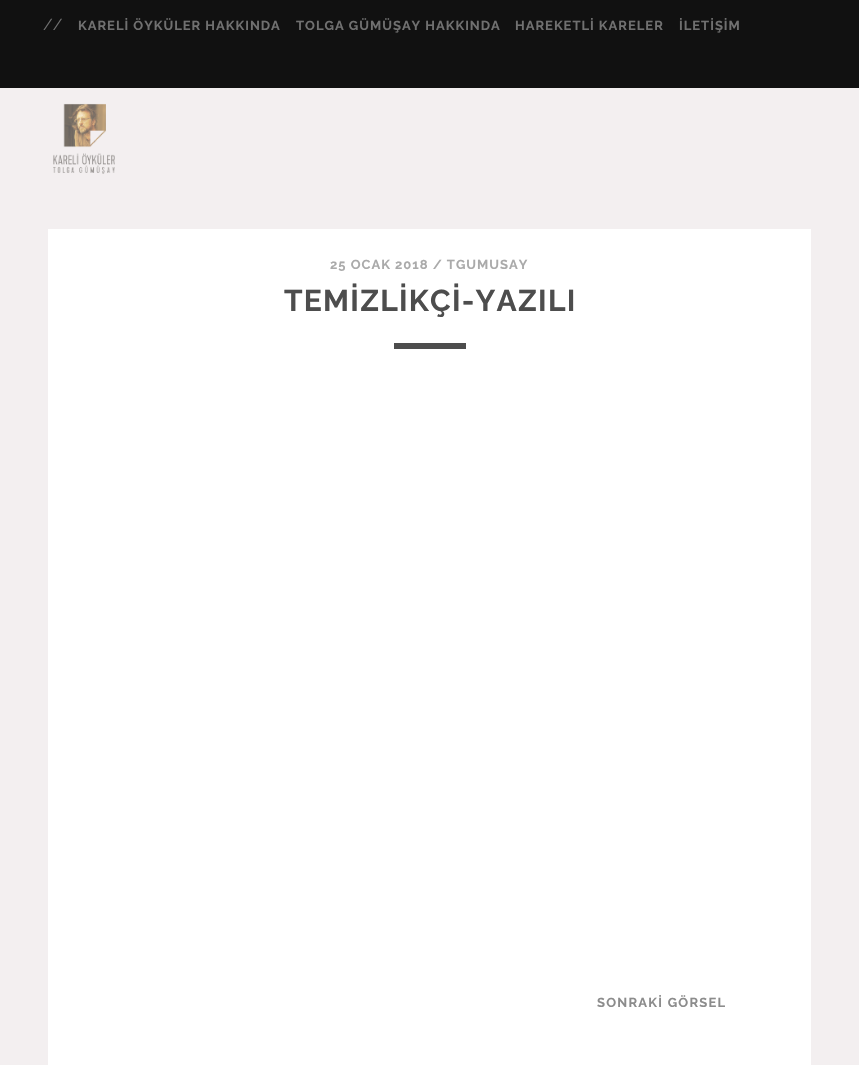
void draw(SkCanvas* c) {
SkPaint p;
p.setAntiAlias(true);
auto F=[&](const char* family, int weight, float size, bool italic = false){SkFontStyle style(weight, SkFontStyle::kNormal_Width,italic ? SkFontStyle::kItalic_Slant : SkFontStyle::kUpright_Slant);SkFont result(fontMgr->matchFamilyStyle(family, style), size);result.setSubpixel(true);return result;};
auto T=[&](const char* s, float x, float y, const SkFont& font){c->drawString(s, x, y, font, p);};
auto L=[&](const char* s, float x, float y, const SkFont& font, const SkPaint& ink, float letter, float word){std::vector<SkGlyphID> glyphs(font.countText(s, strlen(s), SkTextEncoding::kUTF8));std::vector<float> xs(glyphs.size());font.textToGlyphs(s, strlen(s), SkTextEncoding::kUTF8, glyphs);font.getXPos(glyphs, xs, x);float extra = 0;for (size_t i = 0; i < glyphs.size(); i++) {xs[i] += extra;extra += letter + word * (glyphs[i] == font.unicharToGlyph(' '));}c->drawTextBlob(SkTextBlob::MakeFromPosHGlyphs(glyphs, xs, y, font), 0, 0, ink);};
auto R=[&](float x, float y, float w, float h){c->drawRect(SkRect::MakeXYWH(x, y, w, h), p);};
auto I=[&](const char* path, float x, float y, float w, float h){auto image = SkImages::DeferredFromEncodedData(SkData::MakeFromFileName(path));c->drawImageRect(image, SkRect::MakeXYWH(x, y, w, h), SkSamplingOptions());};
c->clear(0xfff3eff0);
p.setColor(0xff111111);
R(0,0,859,88);
auto f1 = F("Raleway",400,16);
p.setColor(0xff707070);
T("//",43,30,f1);
auto f2 = F("Raleway",700,13);
L("KARELİ ÖYKÜLER HAKKINDA",78,30,f2,p,1,0);
L("TOLGA GÜMÜŞAY HAKKINDA",296,30,f2,p,1,0);
L("HAREKETLİ KARELER",515,30,f2,p,1,0);
L("İLETİŞİM",679,30,f2,p,1,0);
I("1.png",53,103,62,71);
p.setColor(0xffffffff);
R(48,229,763,836);
p.setColor(0xffaaaaaa);
L("25 OCAK 2018 / TGUMUSAY",330,269,f2,p,1,0);
auto f3 = F("Raleway",700,30);
p.setColor(0xff4d4d4d);
L("TEMİZLİKÇİ-YAZILI",284,311,f3,p,1.25,0);
R(394,343,72,6);
p.setColor(0xff8c8c8c);
L("SONRAKİ GÖRSEL",597,1007,f2,p,1.25,0);
}
